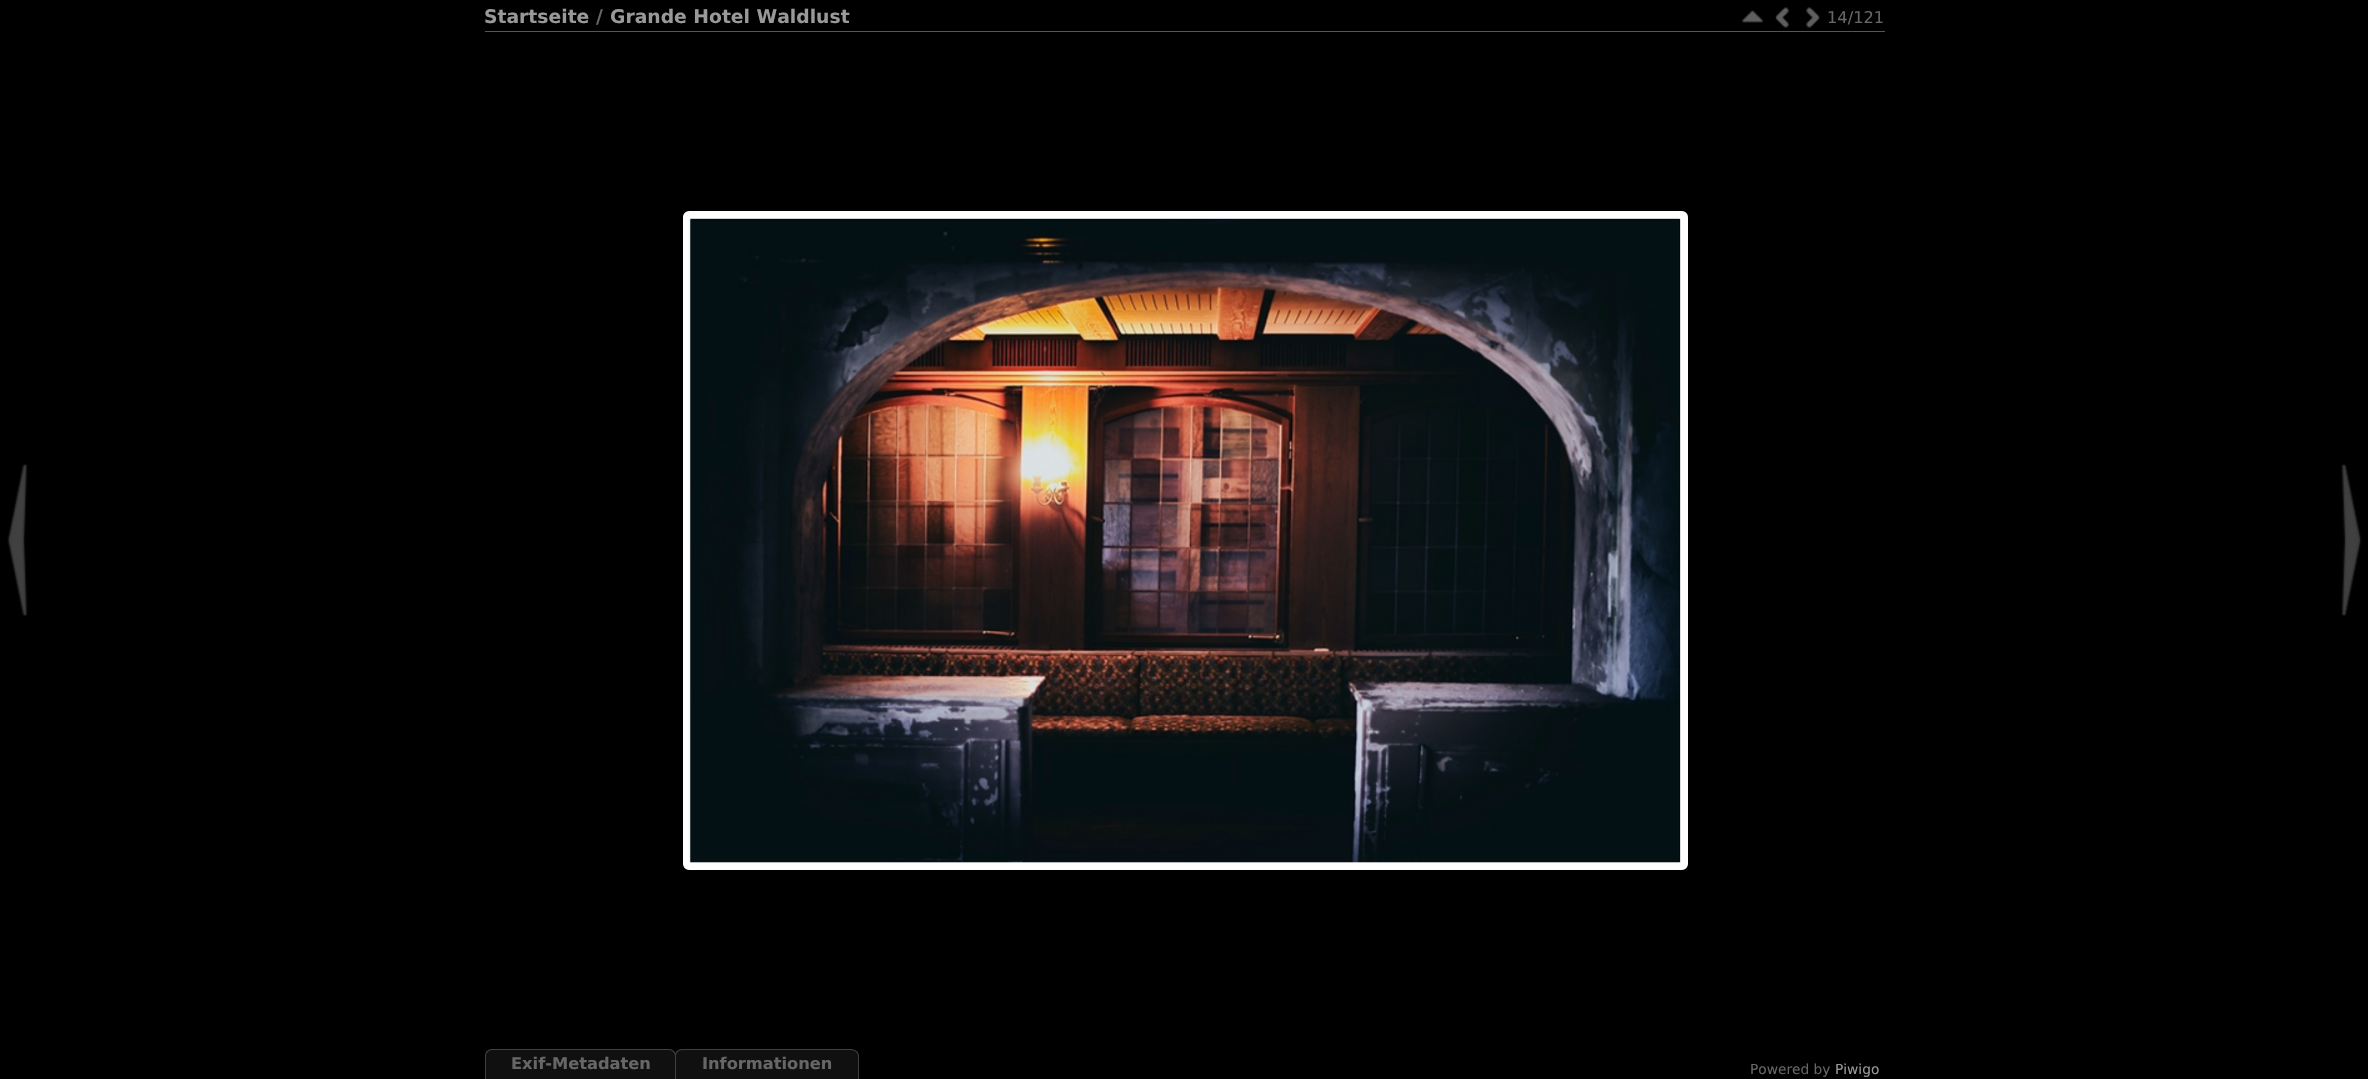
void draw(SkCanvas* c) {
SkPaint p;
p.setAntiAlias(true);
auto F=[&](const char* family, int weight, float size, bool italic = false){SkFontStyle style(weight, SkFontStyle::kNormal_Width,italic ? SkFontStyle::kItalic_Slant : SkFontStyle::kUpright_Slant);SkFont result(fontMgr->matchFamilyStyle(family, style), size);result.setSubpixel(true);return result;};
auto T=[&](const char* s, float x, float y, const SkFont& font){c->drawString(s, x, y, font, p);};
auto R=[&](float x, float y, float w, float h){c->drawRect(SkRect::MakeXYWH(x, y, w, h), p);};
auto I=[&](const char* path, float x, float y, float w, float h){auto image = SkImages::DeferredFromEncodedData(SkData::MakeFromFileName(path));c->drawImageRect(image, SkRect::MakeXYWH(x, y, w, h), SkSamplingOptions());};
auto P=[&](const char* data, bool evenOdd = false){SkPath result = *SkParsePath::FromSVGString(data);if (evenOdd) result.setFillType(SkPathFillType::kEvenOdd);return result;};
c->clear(0xff000000);
p.setColor(0xff555555);
R(485,31,1400,1);
auto f1 = F("DejaVu Sans",700,18.75);
p.setColor(0xff999999);
T("Startseite",484,23,f1);
p.setColor(0xff666666);
T("/",596,23,f1);
p.setColor(0xff999999);
T("Grande Hotel Waldlust",610,23,f1);
I("1.png",1741,10,23,13);
I("2.png",1775,7,14,21);
I("3.png",1806,7,14,21);
auto f2 = F("DejaVu Sans",400,16.25);
p.setColor(0xff666666);
T("14/121",1827,23,f2);
I("4.png",7,464,21,152);
p.setStroke(true);
p.setStrokeWidth(8);
p.setColor(0xffffffff);
c->drawRoundRect(SkRect::MakeXYWH(687,215,997,651),2,2,p);
I("5.png",689,218,992,645);
I("6.png",2341,464,21,152);
p.setStroke(false);
p.setColor(0xff101010);
c->drawPath(P("M492 1050h177c3.5 0 6 2.5 6 6v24h-189v-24c0-3.5 2.5-6 6-6z"),p);
p.setColor(0xff404040);
c->drawPath(P("M492 1049h177c4 0 7 3 7 7v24h-191v-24c0-4 3-7 7-7zm0 1h177c3 0 6 3 6 6v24h-189v-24c0-3 3-6 6-6z",true),p);
auto f3 = F("DejaVu Sans",700,16.25);
p.setColor(0xff666666);
T("Exif-Metadaten",511,1069,f3);
p.setColor(0xff101010);
c->drawPath(P("M682 1050h170c3.5 0 6 2.5 6 6v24h-182v-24c0-3.5 2.5-6 6-6z"),p);
p.setColor(0xff404040);
c->drawPath(P("M682 1049h169c4 0 8 3 8 7v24h-184v-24c0-4 3-7 7-7zm0 1h169c4 0 7 3 7 6v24h-182v-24c0-3 3-6 6-6z",true),p);
p.setColor(0xff666666);
T("Informationen",702,1069,f3);
auto f4 = F("DejaVu Sans",400,13.75);
T("Powered by",1750,1074,f4);
p.setColor(0xff999999);
T("Piwigo",1835,1074,f4);
}
